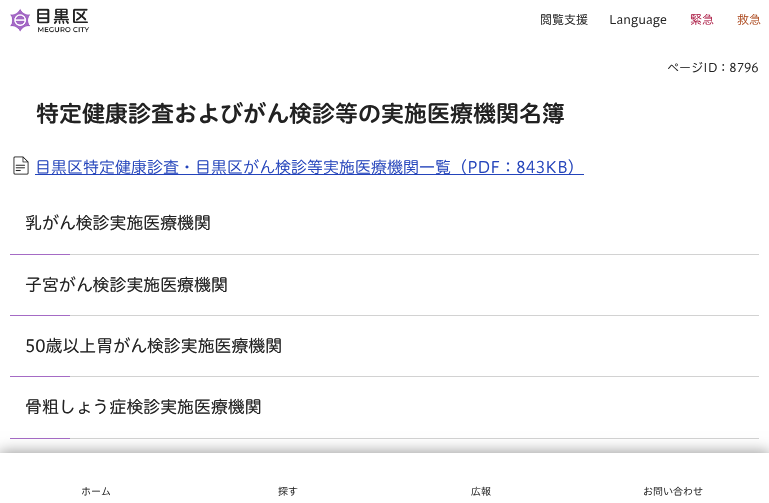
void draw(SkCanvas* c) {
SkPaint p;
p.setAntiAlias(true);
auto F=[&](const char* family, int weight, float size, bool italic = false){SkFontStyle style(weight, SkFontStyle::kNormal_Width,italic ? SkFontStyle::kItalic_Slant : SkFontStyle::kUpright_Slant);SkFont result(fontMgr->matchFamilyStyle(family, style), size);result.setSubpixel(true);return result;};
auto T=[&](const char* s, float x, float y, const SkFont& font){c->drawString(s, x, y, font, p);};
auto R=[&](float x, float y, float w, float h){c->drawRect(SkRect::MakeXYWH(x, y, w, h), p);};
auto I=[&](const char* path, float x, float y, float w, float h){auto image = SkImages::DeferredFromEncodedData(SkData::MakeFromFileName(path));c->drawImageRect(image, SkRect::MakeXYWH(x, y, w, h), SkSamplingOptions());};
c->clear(0xffffffff);
I("1.png",10,8,80,25);
auto f1 = F("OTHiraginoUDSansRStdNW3",300,12);
p.setColor(0xff222222);
T("閲覧支援",540,24,f1);
T("Language",609,24,f1);
p.setColor(0xffac1c45);
T("緊急",690,24,f1);
p.setColor(0xffac481c);
T("救急",737,24,f1);
p.setColor(0xff222222);
T("ページID：8796",667,72,f1);
auto f2 = F("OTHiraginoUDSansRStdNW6",600,23);
T("特定健康診査およびがん検診等の実施医療機関名簿",36,122,f2);
I("2.png",13,156,16,19);
p.setColor(0xff2444bb);
R(35,174,549,1);
auto f3 = F("OTHiraginoUDSansRStdNW3",300,16);
T("目黒区特定健康診査・目黒区がん検診等実施医療機関一覧（PDF：843KB）",35,173,f3);
p.setColor(0xffd2d2d2);
R(70,254,689,1);
auto f4 = F("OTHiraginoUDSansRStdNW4",400,16.9);
p.setColor(0xff222222);
T("乳がん検診実施医療機関",25,229,f4);
p.setColor(0xffa56bc5);
R(10,254,60,1);
p.setColor(0xffd2d2d2);
R(70,315,689,1);
p.setColor(0xff222222);
T("子宮がん検診実施医療機関",25,291,f4);
p.setColor(0xffa56bc5);
R(10,315,60,1);
p.setColor(0xffd2d2d2);
R(70,376,689,1);
p.setColor(0xff222222);
T("50歳以上胃がん検診実施医療機関",25,352,f4);
p.setColor(0xffa56bc5);
R(10,376,60,1);
p.setColor(0xffd2d2d2);
R(70,438,689,1);
p.setColor(0xff222222);
T("骨粗しょう症検診実施医療機関",25,413,f4);
p.setColor(0xffa56bc5);
R(10,438,60,1);
p.setColor(0x66000000);
p.setMaskFilter(SkMaskFilter::MakeBlur(kNormal_SkBlurStyle, 7));
c->drawRect(SkRect::MakeXYWH(-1,452,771,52),p);
p.setMaskFilter(nullptr);
p.setColor(0xffffffff);
R(0,453,769,50);
auto f5 = F("OTHiraginoUDSansRStdNW3",300,10);
p.setColor(0xff222222);
T("ホーム",81,495,f5);
T("探す",278,495,f5);
T("広報",471,495,f5);
T("お問い合わせ",643,495,f5);
}
